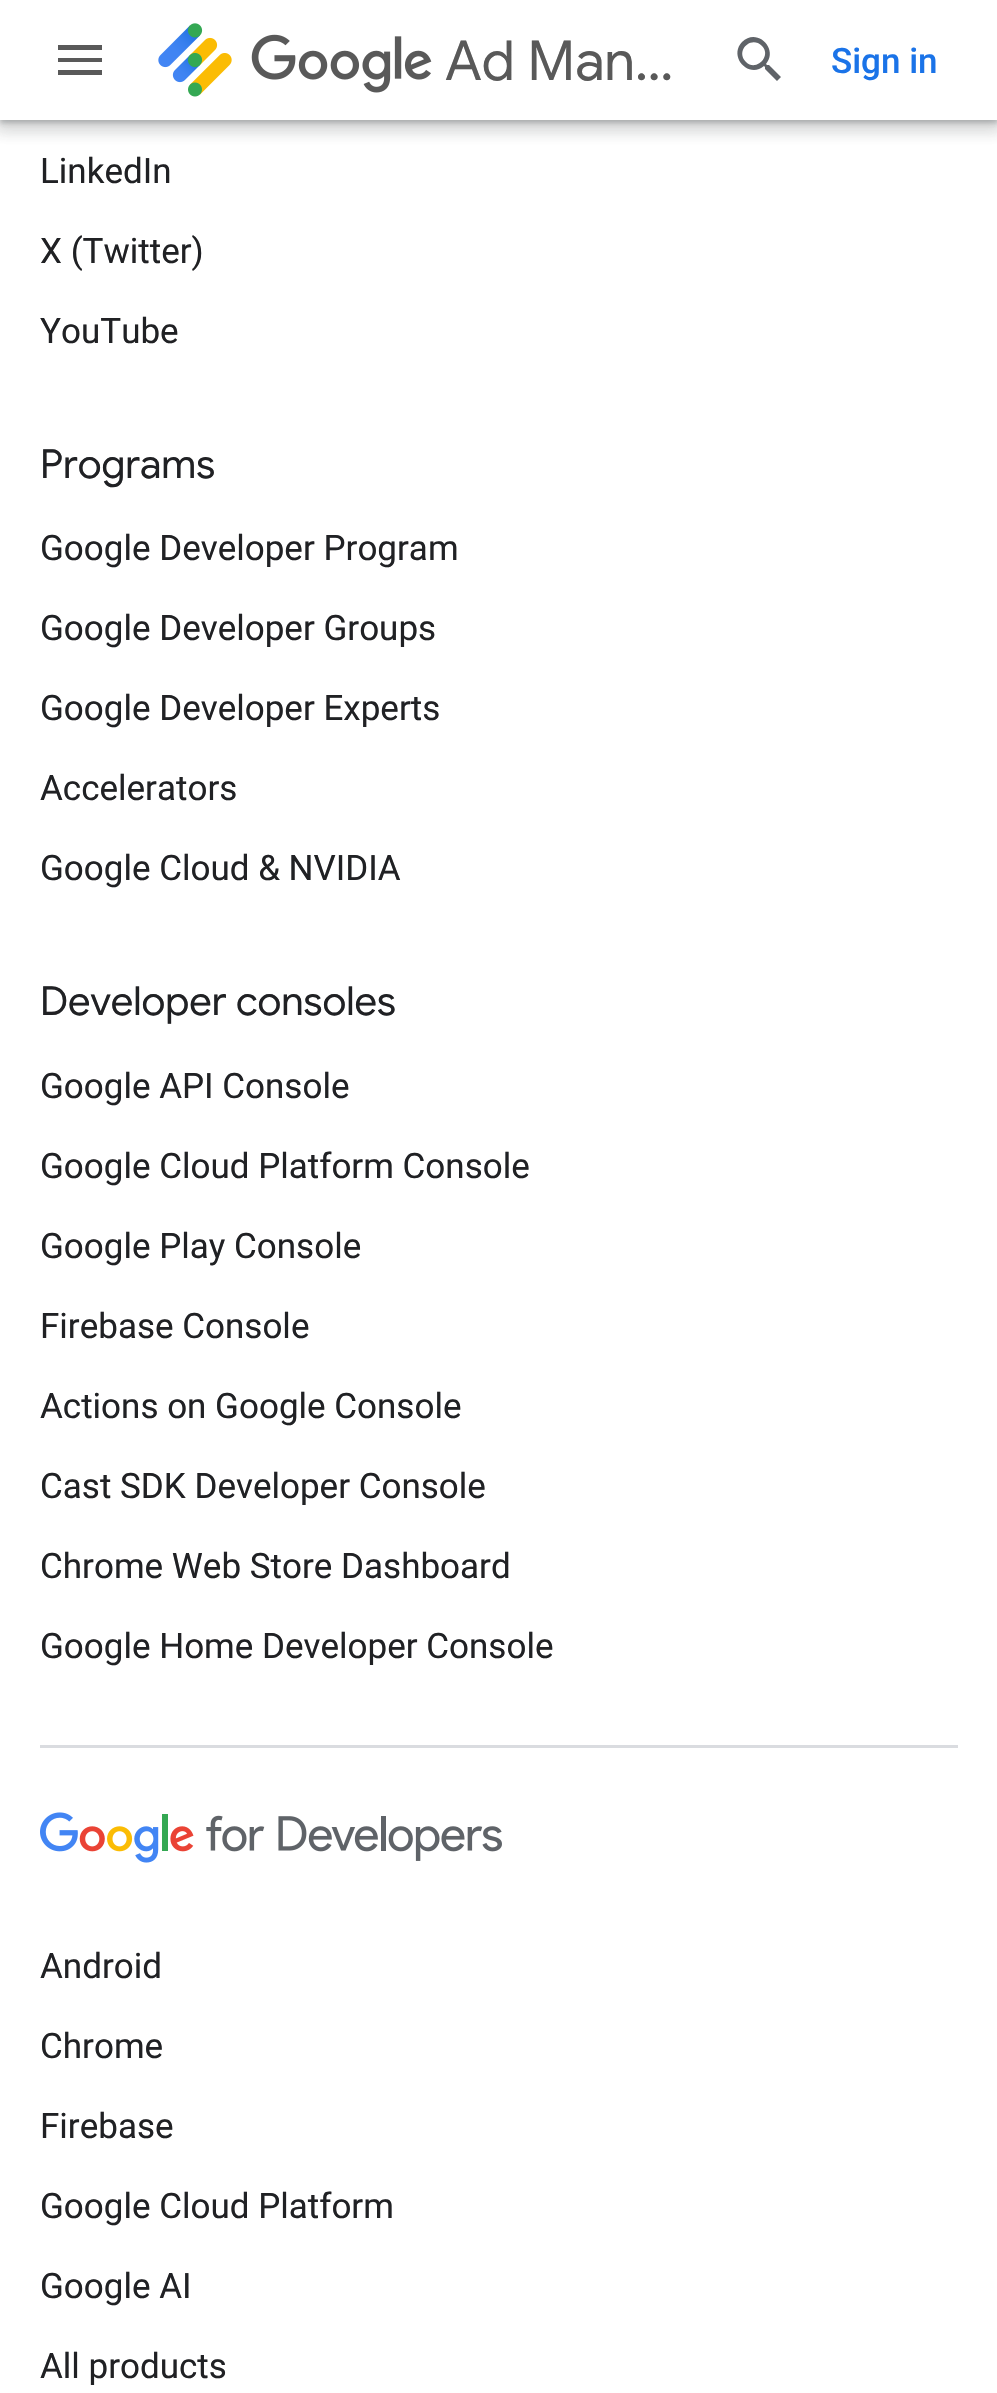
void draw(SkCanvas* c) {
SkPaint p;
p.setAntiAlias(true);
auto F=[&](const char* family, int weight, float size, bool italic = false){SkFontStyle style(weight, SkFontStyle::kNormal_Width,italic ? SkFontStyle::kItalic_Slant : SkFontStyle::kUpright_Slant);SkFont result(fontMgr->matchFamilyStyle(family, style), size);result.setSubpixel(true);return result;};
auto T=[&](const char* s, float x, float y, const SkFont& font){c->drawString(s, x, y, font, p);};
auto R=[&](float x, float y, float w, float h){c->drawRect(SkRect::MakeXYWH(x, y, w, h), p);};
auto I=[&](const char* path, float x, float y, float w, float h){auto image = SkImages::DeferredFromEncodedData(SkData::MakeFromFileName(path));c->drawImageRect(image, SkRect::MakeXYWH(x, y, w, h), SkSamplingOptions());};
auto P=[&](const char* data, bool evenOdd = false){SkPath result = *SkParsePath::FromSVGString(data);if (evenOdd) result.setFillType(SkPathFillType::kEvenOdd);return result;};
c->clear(0xffffffff);
p.setColor(0x263c4043);
p.setMaskFilter(SkMaskFilter::MakeBlur(kNormal_SkBlurStyle, 7.5));
c->drawRect(SkRect::MakeXYWH(-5,0,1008,130),p);
p.setMaskFilter(nullptr);
p.setColor(0x4d3c4043);
p.setMaskFilter(SkMaskFilter::MakeBlur(kNormal_SkBlurStyle, 2.5));
c->drawRect(SkRect::MakeXYWH(0,3,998,120),p);
p.setMaskFilter(nullptr);
p.setColor(0x263c4043);
p.setMaskFilter(SkMaskFilter::MakeBlur(kNormal_SkBlurStyle, 7.5));
c->drawRect(SkRect::MakeXYWH(-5,120,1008,10),p);
p.setMaskFilter(nullptr);
p.setColor(0xffffffff);
R(0,0,997,120);
p.setColor(0xff595959);
c->drawPath(P("M58 45h44v5h-44zm0 17v-4h44v4zm0 13v-5h44v5z"),p);
I("1.png",158,23,74,74);
I("2.png",251,34,181,59);
auto f1 = F("Google Sans",400,55);
T("Ad Man…",445,80,f1);
p.setColor(0xff5f6368);
c->drawPath(P("M746 62c10 10 26-6 16-16c-11-11-27 5-16 16zm23 3l12 12l-4 4l-12-12v-2l-1-1c-15 13-36-9-22-24c15-15 37 7 24 22l1 1z"),p);
auto f2 = F("Roboto",500,35);
p.setColor(0xff1a73e8);
T("Sign in",831,73,f2);
p.setColor(0xffdadce0);
R(40,1745,918,3);
auto f3 = F("Roboto",400,35);
p.setColor(0xff202124);
T("LinkedIn",40,183,f3);
T("X (Twitter)",40,263,f3);
T("YouTube",40,343,f3);
auto f4 = F("Google Sans",400,40);
T("Programs",40,478,f4);
T("Google Developer Program",40,560,f3);
T("Google Developer Groups",40,640,f3);
T("Google Developer Experts",40,720,f3);
T("Accelerators",40,800,f3);
T("Google Cloud & NVIDIA",40,880,f3);
T("Developer consoles",40,1015,f4);
T("Google API Console",40,1098,f3);
T("Google Cloud Platform Console",40,1178,f3);
T("Google Play Console",40,1258,f3);
T("Firebase Console",40,1338,f3);
T("Actions on Google Console",40,1418,f3);
T("Cast SDK Developer Console",40,1498,f3);
T("Chrome Web Store Dashboard",40,1578,f3);
T("Google Home Developer Console",40,1658,f3);
I("3.png",40,1812,462,51);
T("Android",40,1978,f3);
T("Chrome",40,2058,f3);
T("Firebase",40,2138,f3);
T("Google Cloud Platform",40,2218,f3);
T("Google AI",40,2298,f3);
T("All products",40,2378,f3);
}
